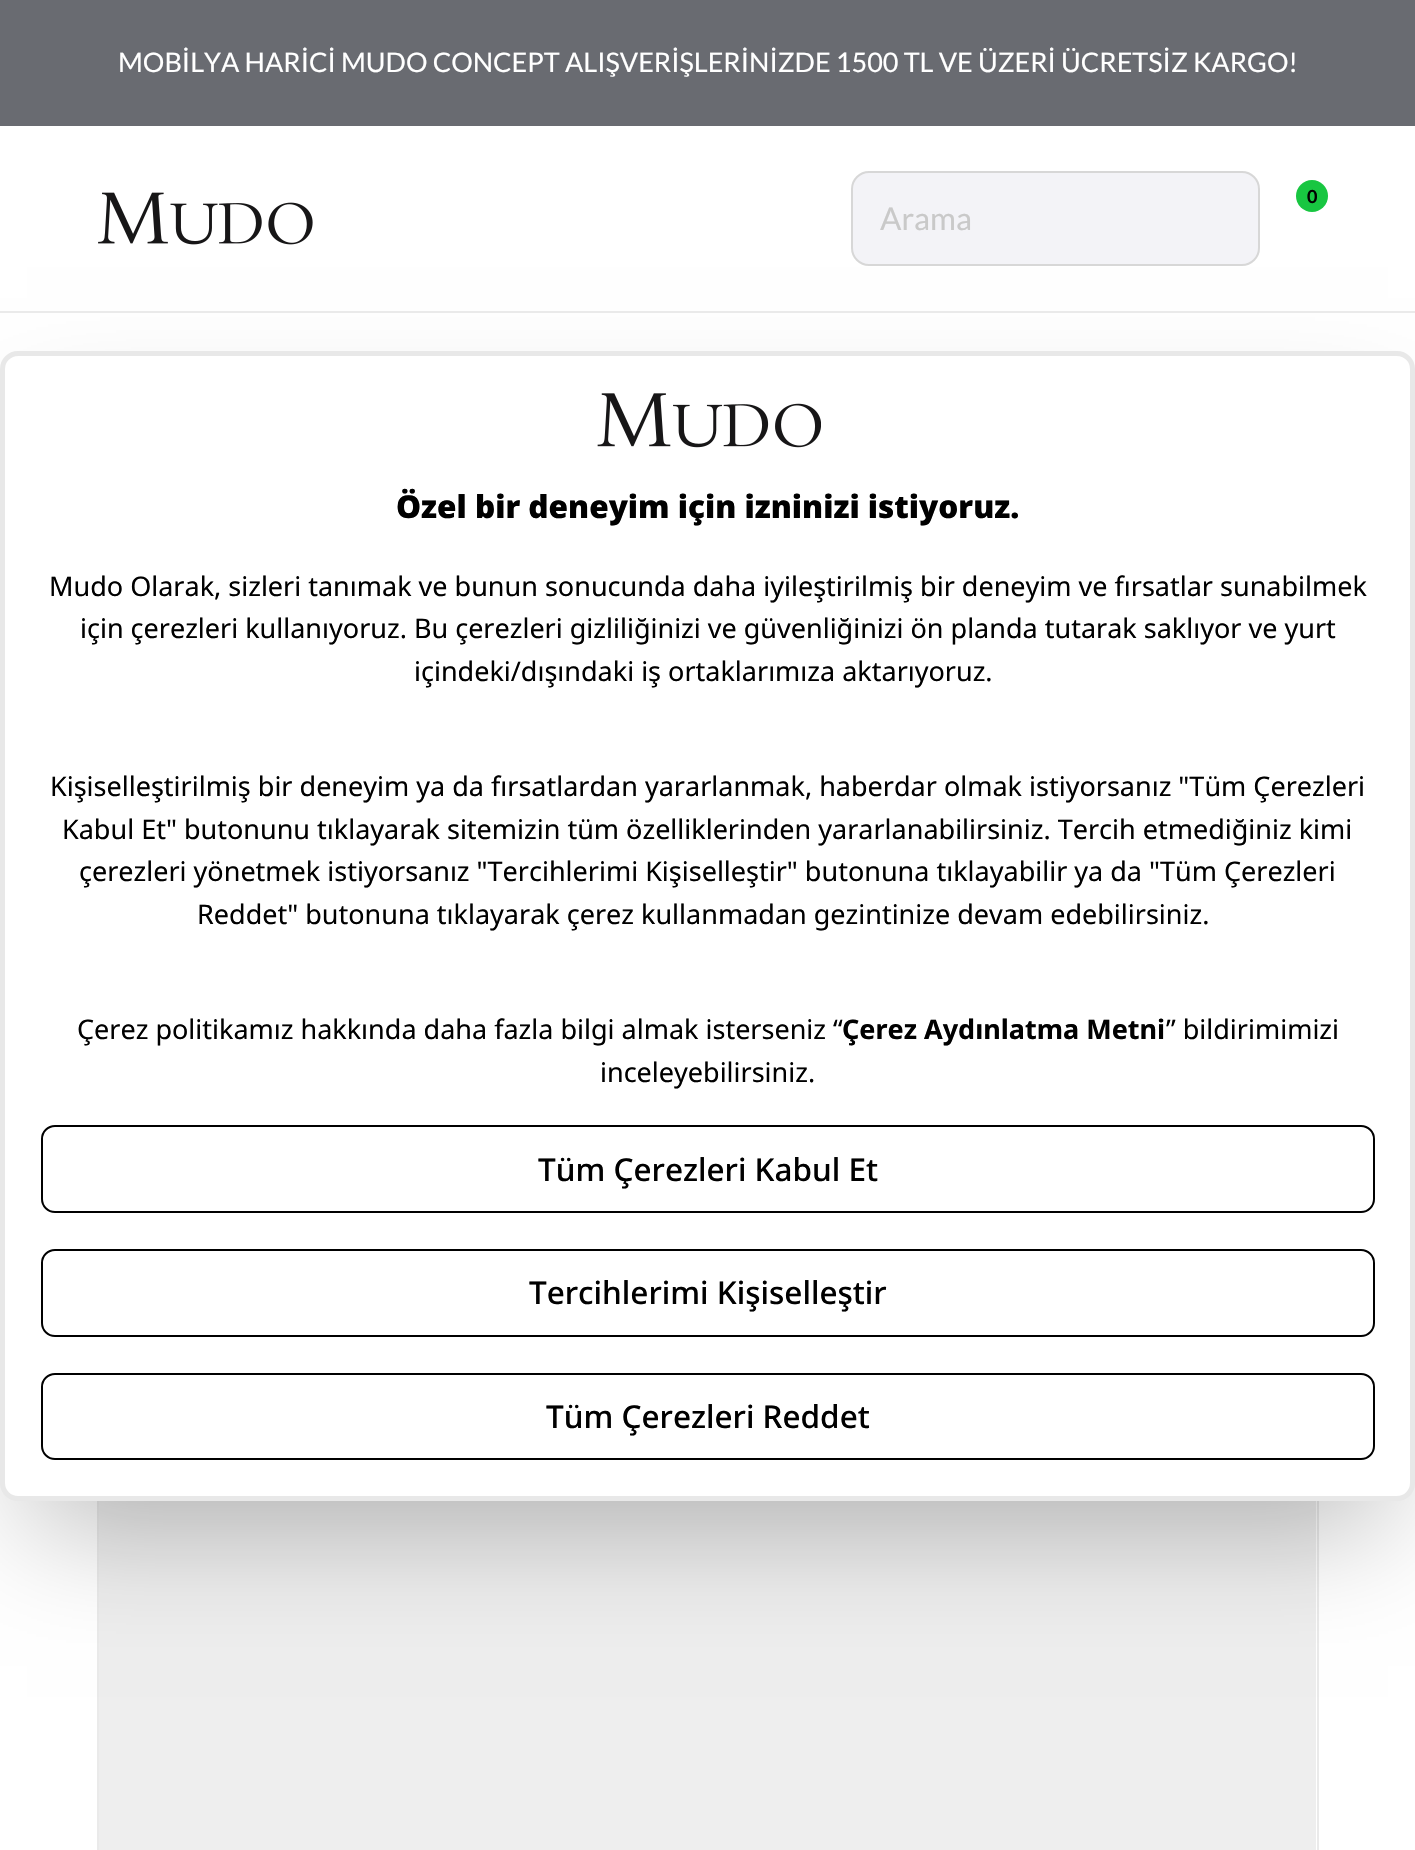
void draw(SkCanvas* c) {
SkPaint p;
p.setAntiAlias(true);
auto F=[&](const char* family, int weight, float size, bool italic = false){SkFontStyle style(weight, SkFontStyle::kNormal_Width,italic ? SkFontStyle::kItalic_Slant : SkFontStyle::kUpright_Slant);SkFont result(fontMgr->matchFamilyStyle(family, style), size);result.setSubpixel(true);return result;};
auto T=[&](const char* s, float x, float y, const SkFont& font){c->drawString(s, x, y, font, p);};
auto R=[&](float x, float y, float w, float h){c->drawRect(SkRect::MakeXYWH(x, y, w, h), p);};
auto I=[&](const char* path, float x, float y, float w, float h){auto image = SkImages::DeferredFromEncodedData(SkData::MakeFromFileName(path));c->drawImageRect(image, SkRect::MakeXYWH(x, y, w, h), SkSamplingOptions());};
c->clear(0xffffffff);
p.setColor(0xff696b71);
R(0,0,1415,126);
auto f1 = F("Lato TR",400,27);
p.setColor(0xffffffff);
T("MOBİLYA HARİCİ MUDO CONCEPT ALIŞVERİŞLERİNİZDE 1500 TL VE ÜZERİ ÜCRETSİZ KARGO!",118,72,f1);
p.setColor(0xffebebeb);
R(0,311,1415,2);
I("1.png",98,192,215,53);
p.setColor(0xff18c641);
c->drawCircle(1312,196,16,p);
auto f2 = F("Lato TR",700,18);
p.setColor(0xff000000);
T("0",1307,203,f2);
p.setColor(0xfff3f3f7);
c->drawRoundRect(SkRect::MakeXYWH(852,172,407,93),17,17,p);
p.setStroke(true);
p.setStrokeWidth(2);
p.setColor(0xffd7d7d7);
c->drawRoundRect(SkRect::MakeXYWH(852,172,407,93),17,17,p);
auto f3 = F("Lato TR",400,31.5);
p.setStroke(false);
p.setColor(0xffc9c9c9);
T("Arama",880,230,f3);
p.setStroke(true);
p.setColor(0xffeaeaea);
c->drawRect(SkRect::MakeXYWH(98,728,1220,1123),p);
p.setStroke(false);
p.setColor(0xffeeeeee);
R(99,1501,1217,349);
p.setColor(0x40000000);
p.setMaskFilter(SkMaskFilter::MakeBlur(kNormal_SkBlurStyle, 56));
c->drawRect(SkRect::MakeXYWH(27,434,1361,1096),p);
p.setMaskFilter(nullptr);
p.setColor(0xffffffff);
c->drawRoundRect(SkRect::MakeXYWH(2.5,353.5,1410,1145),15.5,15.5,p);
p.setStroke(true);
p.setStrokeWidth(5);
p.setColor(0xffe8e8e8);
c->drawRoundRect(SkRect::MakeXYWH(2.5,353.5,1410,1145),15.5,15.5,p);
I("2.png",597,393,224,55);
auto f4 = F("Noto Sans",900,31.5);
p.setStroke(false);
p.setColor(0xff000000);
T("Özel bir deneyim için izninizi istiyoruz.",396,518,f4);
auto f5 = F("Noto Sans",400,27);
T("Mudo Olarak, sizleri tanımak ve bunun sonucunda daha iyileştirilmiş bir deneyim ve fırsatlar sunabilmek",49,596,f5);
T("için çerezleri kullanıyoruz. Bu çerezleri gizliliğinizi ve güvenliğinizi ön planda tutarak saklıyor ve yurt",80,638,f5);
T("içindeki/dışındaki iş ortaklarımıza aktarıyoruz.",414,681,f5);
T("Kişiselleştirilmiş bir deneyim ya da fırsatlardan yararlanmak, haberdar olmak istiyorsanız \"Tüm Çerezleri",50,796,f5);
T("Kabul Et\" butonunu tıklayarak sitemizin tüm özelliklerinden yararlanabilirsiniz. Tercih etmediğiniz kimi",62,839,f5);
T("çerezleri yönetmek istiyorsanız \"Tercihlerimi Kişiselleştir\" butonuna tıklayabilir ya da \"Tüm Çerezleri",79,881,f5);
T("Reddet\" butonuna tıklayarak çerez kullanmadan gezintinize devam edebilirsiniz.",197,924,f5);
T("Çerez politikamız hakkında daha fazla bilgi almak isterseniz “",77,1039,f5);
auto f6 = F("Noto Sans",700,27);
T("Çerez Aydınlatma Metni",842,1039,f6);
T("” bildirimimizi",1166,1039,f5);
T("inceleyebilirsiniz.",600,1082,f5);
p.setStroke(true);
p.setStrokeWidth(2);
c->drawRoundRect(SkRect::MakeXYWH(42,1126,1332,86),13,13,p);
auto f7 = F("Noto Sans",500,31.5);
p.setStroke(false);
T("Tüm Çerezleri Kabul Et",538,1181,f7);
p.setStroke(true);
c->drawRoundRect(SkRect::MakeXYWH(42,1250,1332,86),13,13,p);
p.setStroke(false);
T("Tercihlerimi Kişiselleştir",529,1304,f7);
p.setStroke(true);
c->drawRoundRect(SkRect::MakeXYWH(42,1374,1332,85),13,13,p);
p.setStroke(false);
T("Tüm Çerezleri Reddet",546,1428,f7);
}
